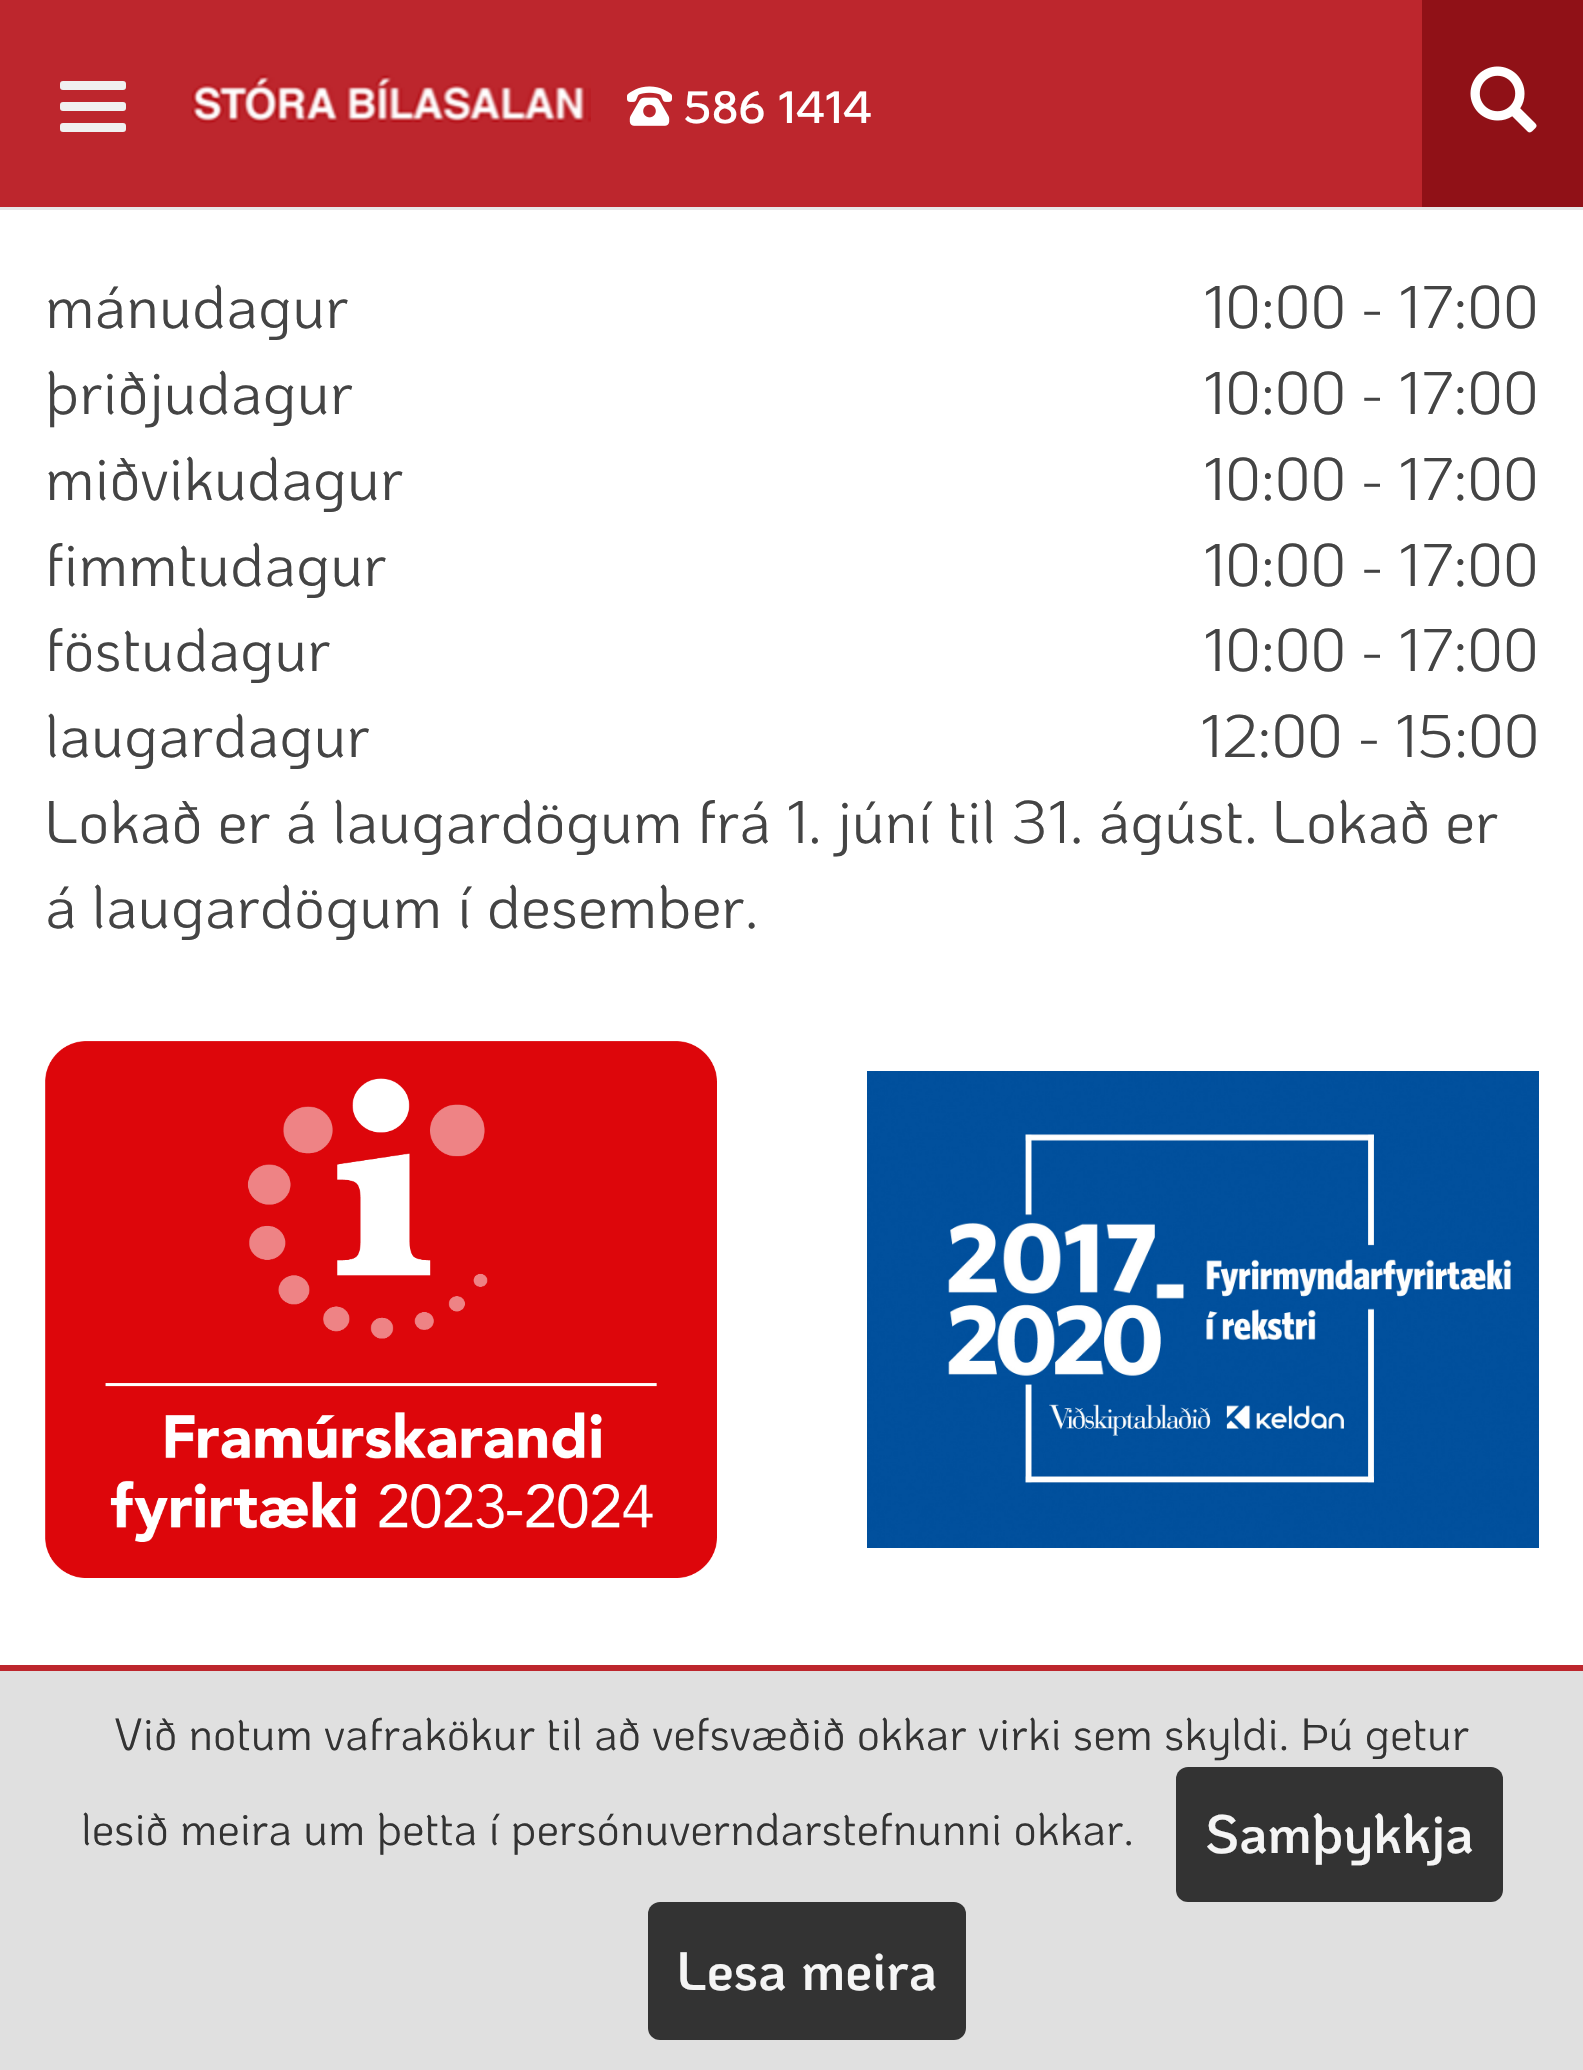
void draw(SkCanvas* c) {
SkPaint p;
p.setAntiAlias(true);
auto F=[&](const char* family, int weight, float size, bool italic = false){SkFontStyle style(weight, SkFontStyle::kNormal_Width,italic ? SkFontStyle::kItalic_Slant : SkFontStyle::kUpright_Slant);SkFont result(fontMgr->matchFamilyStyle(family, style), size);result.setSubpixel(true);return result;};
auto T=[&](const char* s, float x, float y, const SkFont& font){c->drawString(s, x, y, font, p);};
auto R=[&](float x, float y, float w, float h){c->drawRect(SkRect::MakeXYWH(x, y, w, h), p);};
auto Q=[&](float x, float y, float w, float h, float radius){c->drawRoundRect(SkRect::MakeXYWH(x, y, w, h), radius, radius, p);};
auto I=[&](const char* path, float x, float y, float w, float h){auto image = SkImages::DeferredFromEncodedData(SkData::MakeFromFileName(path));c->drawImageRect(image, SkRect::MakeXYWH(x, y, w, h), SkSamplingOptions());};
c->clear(0xffffffff);
p.setColor(0xffbd262d);
R(0,0,1422,207);
p.setColor(0xffe7e7e7);
R(0,207,1583,3);
p.setColor(0xfff0f0f0);
Q(60,81,66,9,3);
Q(60,102,66,9,3);
Q(60,123,66,9,3);
I("1.png",191,74,400,50);
I("2.png",627,86,45,40);
auto f1 = F("KoHo",600,45);
p.setColor(0xffffffff);
T("586 1414",683,123,f1);
p.setColor(0xff901117);
R(1422,0,161,207);
I("3.png",1470,66,67,67);
auto f2 = F("KoHo",400,60);
p.setColor(0xff444444);
T("mánudagur",45,328,f2);
T("10:00 - 17:00",1203,328,f2);
T("þriðjudagur",45,414,f2);
T("10:00 - 17:00",1203,414,f2);
T("miðvikudagur",45,500,f2);
T("10:00 - 17:00",1203,500,f2);
T("fimmtudagur",45,586,f2);
T("10:00 - 17:00",1203,586,f2);
T("föstudagur",45,671,f2);
T("10:00 - 17:00",1203,671,f2);
T("laugardagur",45,757,f2);
T("12:00 - 15:00",1200,757,f2);
T("Lokað er á laugardögum frá 1. júní til 31. ágúst. Lokað er",45,843,f2);
T("á laugardögum í desember.",45,928,f2);
I("4.png",45,1041,672,537);
I("5.png",867,1071,672,477);
p.setColor(0xffe0e0e0);
R(0,1671,1583,399);
p.setColor(0xffbd262d);
R(0,1665,1583,6);
auto f3 = F("KoHo",400,45);
p.setColor(0xff333333);
T("Við notum vafrakökur til að vefsvæðið okkar virki sem skyldi. Þú getur",114,1750,f3);
T("lesið meira um þetta í persónuverndarstefnunni okkar.",81,1845,f3);
Q(1176,1767,327,135,12);
auto f4 = F("KoHo",600,54);
p.setColor(0xfff5f5f5);
T("Samþykkja",1205,1853,f4);
p.setColor(0xff333333);
Q(648,1902,318,138,12);
p.setColor(0xfff5f5f5);
T("Lesa meira",677,1990,f4);
}
